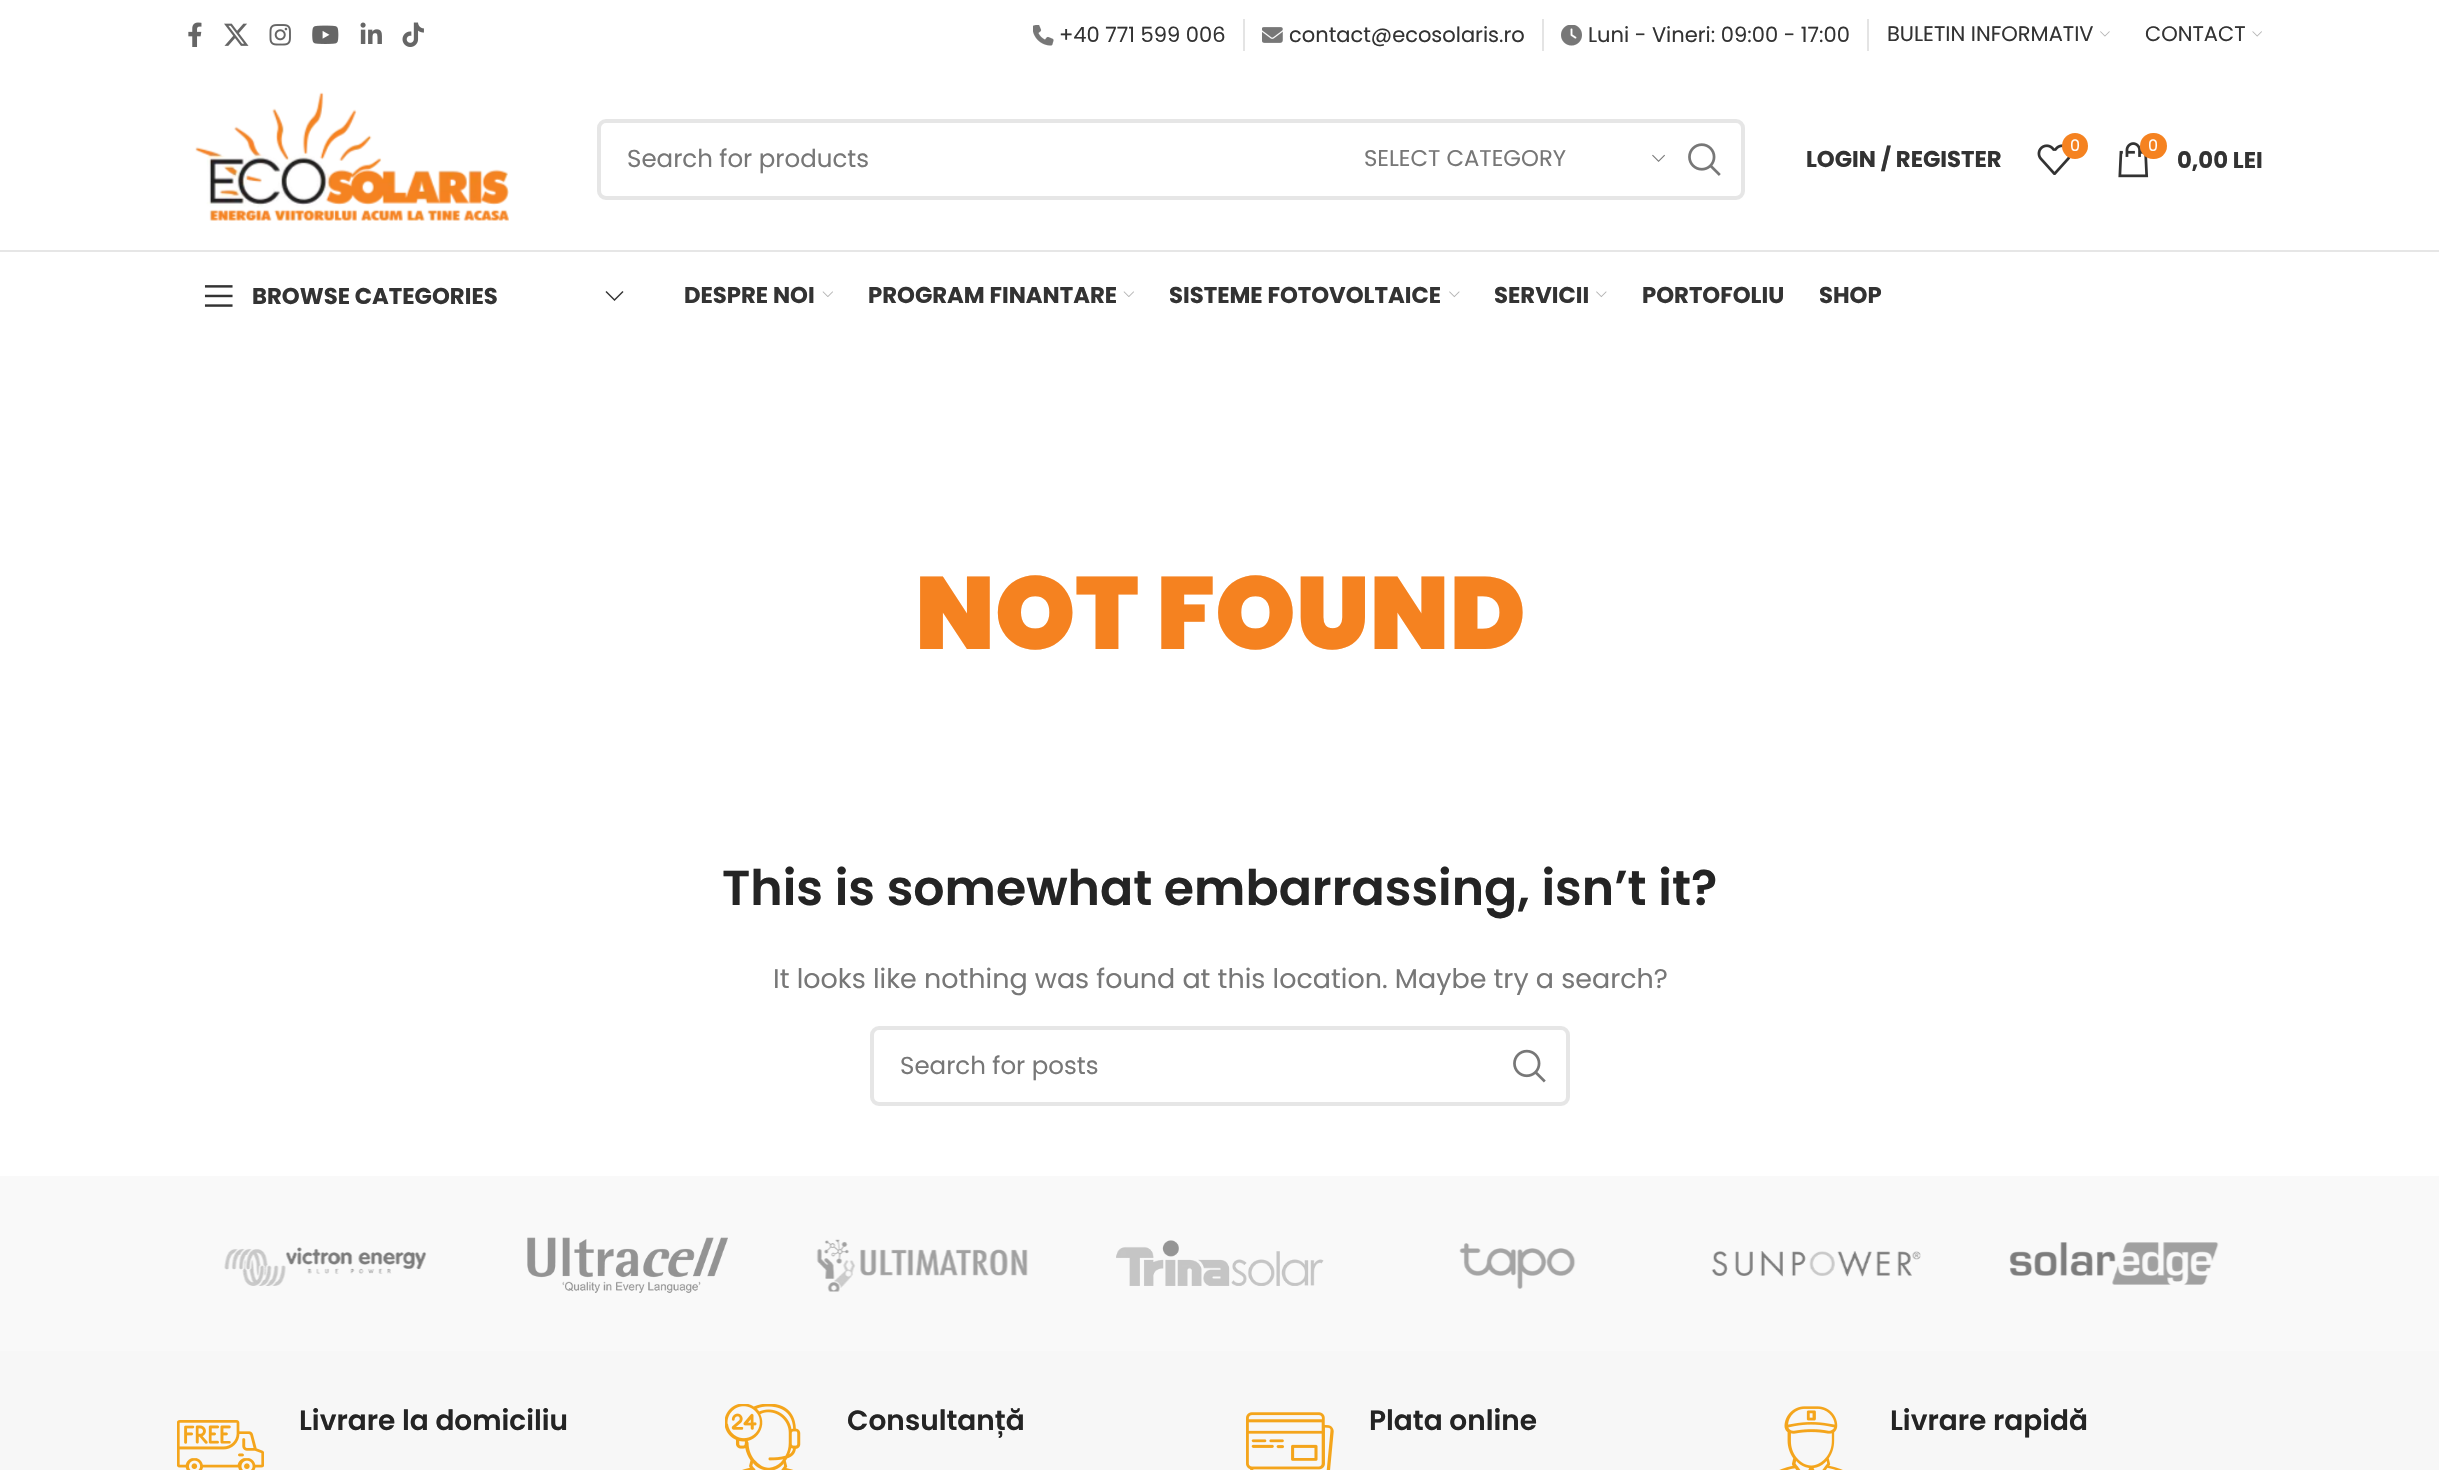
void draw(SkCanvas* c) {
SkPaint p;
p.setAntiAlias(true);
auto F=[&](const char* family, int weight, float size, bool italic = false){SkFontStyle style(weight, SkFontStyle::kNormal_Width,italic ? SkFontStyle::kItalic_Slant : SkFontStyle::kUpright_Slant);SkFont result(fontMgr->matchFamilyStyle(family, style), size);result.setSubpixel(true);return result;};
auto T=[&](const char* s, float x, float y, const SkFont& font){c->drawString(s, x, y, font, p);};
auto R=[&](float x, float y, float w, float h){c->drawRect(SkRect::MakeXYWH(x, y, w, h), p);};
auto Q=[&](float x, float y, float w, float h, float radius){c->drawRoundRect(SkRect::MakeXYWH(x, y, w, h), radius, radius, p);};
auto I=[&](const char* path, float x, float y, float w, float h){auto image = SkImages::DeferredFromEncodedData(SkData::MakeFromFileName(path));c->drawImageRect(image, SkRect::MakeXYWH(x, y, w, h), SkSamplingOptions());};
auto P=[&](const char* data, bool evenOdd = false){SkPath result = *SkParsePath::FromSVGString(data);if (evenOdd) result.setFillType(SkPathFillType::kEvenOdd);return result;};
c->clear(0xffffffff);
I("1.png",188,22,14,25);
I("2.png",224,23,25,23);
I("3.png",269,24,22,22);
I("4.png",312,25,27,19);
I("5.png",360,22,22,22);
I("6.png",402,22,22,25);
I("7.png",1033,25,21,21);
auto f1 = F("Poppins",400,21);
p.setColor(0xff333333);
T("+40 771 599 006",1059,42,f1);
p.setColor(0xffe4e4e4);
R(1243,19,2,32);
I("8.png",1262,27,21,16);
p.setColor(0xff333333);
T("contact@ecosolaris.ro",1289,42,f1);
p.setColor(0xffe4e4e4);
R(1542,19,2,32);
I("9.png",1561,25,21,21);
p.setColor(0xff333333);
T("Luni - Vineri: 09:00 - 17:00",1588,42,f1);
p.setColor(0xffe4e4e4);
R(1867,19,2,32);
p.setColor(0xff333333);
T("BULETIN INFORMATIV",1887,41,f1);
I("10.png",2100,31,10,6);
T("CONTACT",2145,41,f1);
I("11.png",2252,31,10,6);
p.setColor(0xffe6e6e6);
R(0,250,2439,2);
I("12.png",195,92,314,129);
p.setStroke(true);
p.setStrokeWidth(4);
c->drawRoundRect(SkRect::MakeXYWH(599,121,1144,77),7,7,p);
auto f2 = F("Poppins",400,24.5);
p.setStroke(false);
p.setColor(0xff777777);
T("Search for products",627,167,f2);
auto f3 = F("Poppins",400,22.75);
T("SELECT CATEGORY",1364,166,f3);
I("13.png",1652,154,13,8);
I("14.png",1688,143,33,33);
auto f4 = F("Poppins",700,22.75);
p.setColor(0xff333333);
T("LOGIN / REGISTER",1806,167,f4);
I("15.png",2037,144,34,31);
p.setColor(0xfff58220);
c->drawCircle(2075,146,13,p);
auto f5 = F("Poppins",400,16);
p.setColor(0xffffffff);
T("0",2070,151,f5);
I("16.png",2118,142,31,36);
p.setColor(0xfff58220);
Q(2140,133,27,26,13);
p.setColor(0xffffffff);
T("0",2148,151,f5);
p.setColor(0xff333333);
T("0,00 LEI",2177,168,f4);
I("17.png",204,285,29,22);
T("BROWSE CATEGORIES",252,304,f4);
c->drawPath(P("M622.5 291l-8 8l-8-8l-1 1l9 9l9-9z"),p);
T("DESPRE NOI",684,303,f4);
I("18.png",822,291,11,6);
T("PROGRAM FINANTARE",868,303,f4);
I("18.png",1123,291,11,6);
T("SISTEME FOTOVOLTAICE",1169,303,f4);
I("19.png",1449,291,11,7);
T("SERVICII",1494,303,f4);
I("19.png",1596,291,11,7);
T("PORTOFOLIU",1642,303,f4);
T("SHOP",1819,303,f4);
auto f6 = F("Poppins",900,102.5);
p.setColor(0xfff58220);
T("NOT FOUND",915,649,f6);
auto f7 = F("Poppins",600,49);
p.setColor(0xff242424);
T("This is somewhat embarrassing, isn’t it?",722,905,f7);
auto f8 = F("Poppins",400,26.95);
p.setColor(0xff777777);
T("It looks like nothing was found at this location. Maybe try a search?",773,988,f8);
p.setStroke(true);
p.setColor(0xffe6e6e6);
c->drawRoundRect(SkRect::MakeXYWH(872,1028,696,76),7,7,p);
p.setStroke(false);
p.setColor(0xff777777);
T("Search for posts",900,1074,f2);
I("20.png",1513,1049,33,34);
p.setColor(0xfff9f9f9);
R(0,1176,2439,175);
I("21.png",224,1247,203,39);
I("22.png",527,1237,201,56);
I("23.png",816,1239,212,53);
I("24.png",1116,1240,208,46);
I("25.png",1459,1243,117,46);
I("26.png",1711,1251,210,26);
I("27.png",2009,1242,210,43);
p.setColor(0xfff7f7f7);
R(0,1351,2439,119);
I("28.png",177,1420,87,50);
auto f9 = F("Poppins",600,28);
p.setColor(0xff242424);
T("Livrare la domiciliu",299,1430,f9);
I("29.png",725,1404,76,66);
T("Consultanță",847,1430,f9);
I("30.png",1246,1412,88,58);
T("Plata online",1369,1430,f9);
I("31.png",1779,1406,64,64);
T("Livrare rapidă",1890,1430,f9);
}
